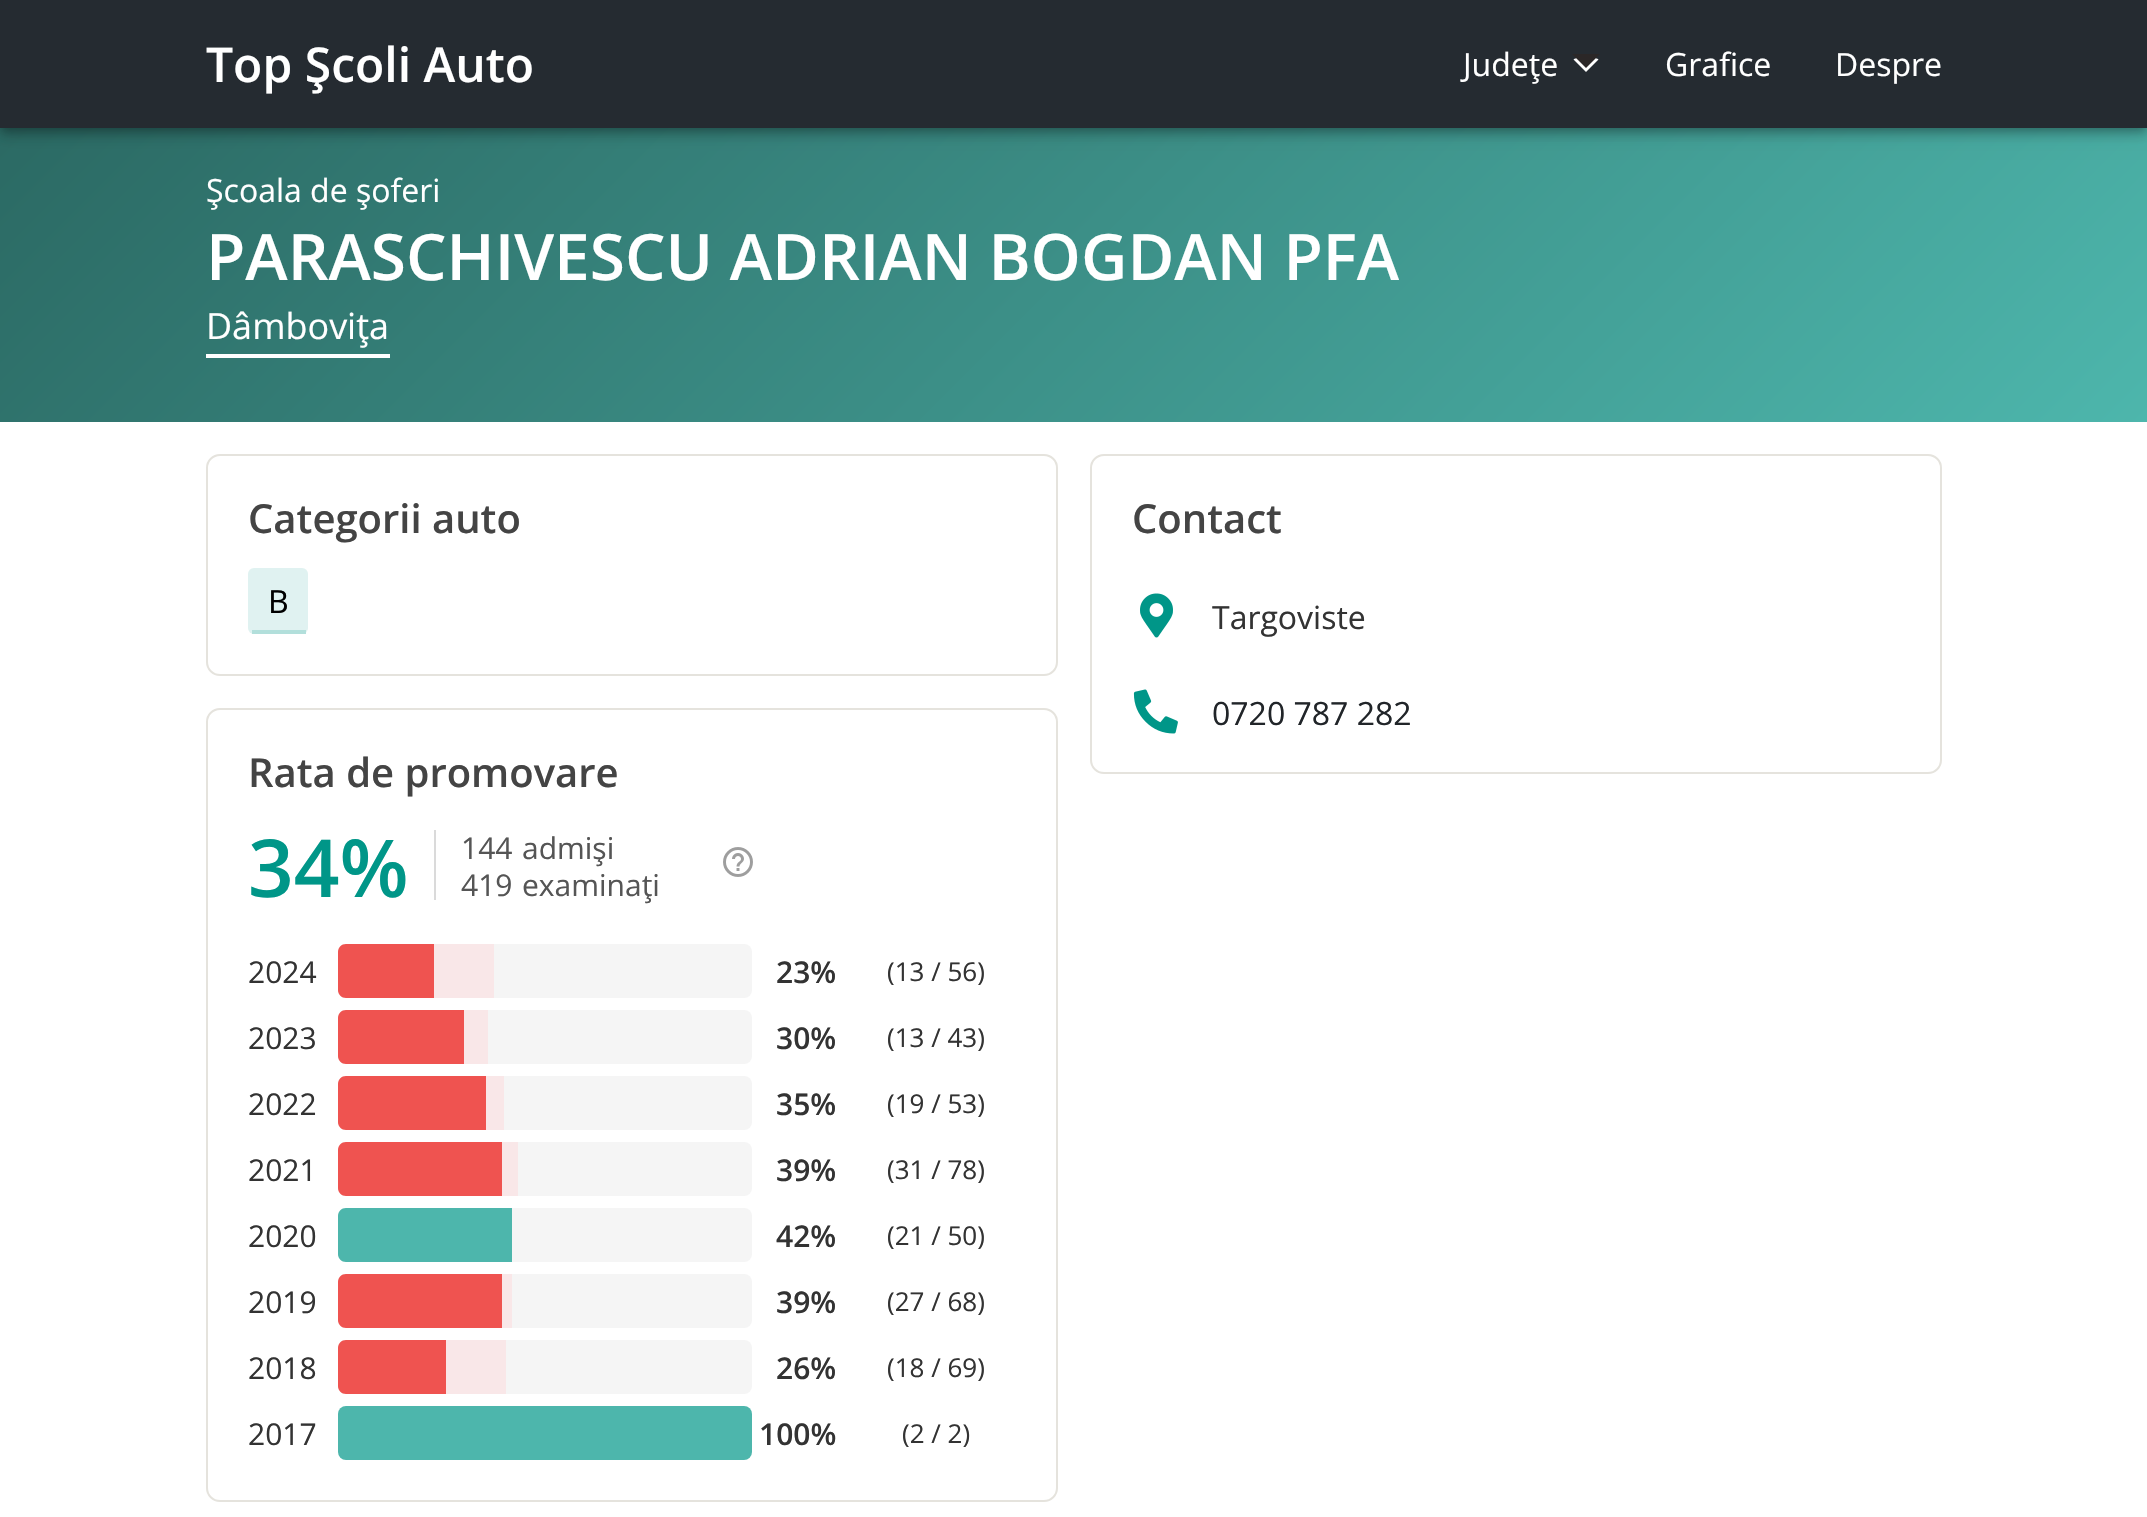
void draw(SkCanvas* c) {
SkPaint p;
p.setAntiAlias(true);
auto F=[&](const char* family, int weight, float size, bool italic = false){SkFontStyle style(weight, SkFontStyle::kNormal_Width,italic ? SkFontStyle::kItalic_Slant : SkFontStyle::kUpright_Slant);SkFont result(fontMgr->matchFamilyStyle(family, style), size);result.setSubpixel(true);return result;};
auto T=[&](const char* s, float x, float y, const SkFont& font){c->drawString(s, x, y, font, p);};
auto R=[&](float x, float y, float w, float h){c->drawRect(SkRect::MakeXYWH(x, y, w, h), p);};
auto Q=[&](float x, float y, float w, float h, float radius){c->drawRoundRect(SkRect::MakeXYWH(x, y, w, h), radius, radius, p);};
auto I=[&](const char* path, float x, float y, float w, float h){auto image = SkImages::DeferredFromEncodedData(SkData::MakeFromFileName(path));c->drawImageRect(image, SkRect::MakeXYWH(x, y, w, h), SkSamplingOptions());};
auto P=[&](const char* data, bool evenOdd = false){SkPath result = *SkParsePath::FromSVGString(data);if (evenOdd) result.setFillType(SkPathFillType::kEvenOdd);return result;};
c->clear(0xffffffff);
{
const SkColor colors[] = {0xff4db6ac,0xff2b6963};
const float stops[] = {0,1};
const SkPoint ends[] = {{1689,881}, {459,-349}};
p.setShader(SkGradientShader::MakeLinear(ends, colors, stops, 2, SkTileMode::kClamp));
p.setAlpha(255);
}
R(0,128,2147,294);
p.setShader(nullptr);
p.setColor(0x33000000);
p.setMaskFilter(SkMaskFilter::MakeBlur(kNormal_SkBlurStyle, 4));
c->drawRect(SkRect::MakeXYWH(2,6,2144,124),p);
p.setMaskFilter(nullptr);
p.setColor(0x1f000000);
p.setMaskFilter(SkMaskFilter::MakeBlur(kNormal_SkBlurStyle, 10));
c->drawRect(SkRect::MakeXYWH(0,2,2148,128),p);
p.setMaskFilter(nullptr);
p.setColor(0x24000000);
p.setMaskFilter(SkMaskFilter::MakeBlur(kNormal_SkBlurStyle, 5));
c->drawRect(SkRect::MakeXYWH(0,8,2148,128),p);
p.setMaskFilter(nullptr);
p.setColor(0xff252b31);
R(0,0,2147,128);
auto f1 = F("Open Sans",600,48);
p.setColor(0xffffffff);
T("Top Şcoli Auto",206,82,f1);
auto f2 = F("Open Sans",400,32);
T("Judeţe",1463,76,f2);
c->drawPath(P("M1578 58c-2 0-3 .5-4.5 1.5l12.5 12.5l12.5-12.5c-1.5-1-2.5-1.5-4.5-1.5z"),p);
p.setColor(0xff2b2727);
c->drawPath(P("M1572 54h28l-14 14z"),p);
p.setColor(0xffffffff);
T("Grafice",1665,76,f2);
T("Despre",1835,76,f2);
T("Şcoala de şoferi",206,202,f2);
auto f3 = F("Open Sans",600,64);
T("PARASCHIVESCU ADRIAN BOGDAN PFA",206,280,f3);
R(206,354,184,4);
auto f4 = F("Open Sans",400,36);
T("Dâmboviţa",206,339,f4);
p.setStroke(true);
p.setStrokeWidth(2);
p.setColor(0xffe5e3dd);
c->drawRoundRect(SkRect::MakeXYWH(207,455,850,220),13,13,p);
auto f5 = F("Open Sans",600,40);
p.setStroke(false);
p.setColor(0xff444444);
T("Categorii auto",248,533,f5);
p.setColor(0xffe0f2f1);
Q(248,568,60,66,6);
p.setColor(0xffb2dfdb);
R(252,630,54,4);
p.setColor(0xff000000);
T("B",268,613,f2);
p.setStroke(true);
p.setColor(0xffe5e3dd);
c->drawRoundRect(SkRect::MakeXYWH(207,709,850,792),13,13,p);
p.setStroke(false);
p.setColor(0xff444444);
T("Rata de promovare",248,787,f5);
auto f6 = F("Open Sans",600,80);
p.setColor(0xff009688);
T("34%",248,897,f6);
p.setColor(0xffdadada);
R(434,830,2,70);
auto f7 = F("Open Sans",400,30);
p.setColor(0xff555555);
T("144",461,859,f7);
T("admişi",522,859,f7);
T("419",461,896,f7);
T("examinaţi",522,896,f7);
I("1.png",723,847,30,30);
p.setColor(0xff333333);
T("2024",248,983,f7);
p.setColor(0xfff5f5f5);
Q(338,944,414,54,8);
p.setColor(0xffef5350);
c->drawPath(P("M346 944h88v54h-88c-4.5 0-8-3.5-8-8v-38c0-4.5 3.5-8 8-8z"),p);
p.setColor(0xfff9e7e8);
R(434,944,60,54);
auto f8 = F("Open Sans",600,30);
p.setColor(0xff333333);
T("23%",776,983,f8);
auto f9 = F("Open Sans",400,26);
T("(13 / 56)",887,981,f9);
T("2023",248,1049,f7);
p.setColor(0xfff5f5f5);
Q(338,1010,414,54,8);
p.setColor(0xffef5350);
c->drawPath(P("M346 1010h118v54h-118c-4.5 0-8-3.5-8-8v-38c0-4.5 3.5-8 8-8z"),p);
p.setColor(0xfff9e7e8);
R(464,1010,24,54);
p.setColor(0xff333333);
T("30%",776,1049,f8);
T("(13 / 43)",887,1047,f9);
T("2022",248,1115,f7);
p.setColor(0xfff5f5f5);
Q(338,1076,414,54,8);
p.setColor(0xffef5350);
c->drawPath(P("M346 1076h140v54h-140c-4.5 0-8-3.5-8-8v-38c0-4.5 3.5-8 8-8z"),p);
p.setColor(0xfff9e7e8);
R(486,1076,18,54);
p.setColor(0xff333333);
T("35%",776,1115,f8);
T("(19 / 53)",887,1113,f9);
T("2021",248,1181,f7);
p.setColor(0xfff5f5f5);
Q(338,1142,414,54,8);
p.setColor(0xffef5350);
c->drawPath(P("M346 1142h156v54h-156c-4.5 0-8-3.5-8-8v-38c0-4.5 3.5-8 8-8z"),p);
p.setColor(0xfff9e7e8);
R(502,1142,16,54);
p.setColor(0xff333333);
T("39%",776,1181,f8);
T("(31 / 78)",887,1179,f9);
T("2020",248,1247,f7);
p.setColor(0xfff5f5f5);
Q(338,1208,414,54,8);
p.setColor(0xff4db6ac);
c->drawPath(P("M346 1208h166v54h-166c-4.5 0-8-3.5-8-8v-38c0-4.5 3.5-8 8-8z"),p);
p.setColor(0xff333333);
T("42%",776,1247,f8);
T("(21 / 50)",887,1245,f9);
T("2019",248,1313,f7);
p.setColor(0xfff5f5f5);
Q(338,1274,414,54,8);
p.setColor(0xffef5350);
c->drawPath(P("M346 1274h156v54h-156c-4.5 0-8-3.5-8-8v-38c0-4.5 3.5-8 8-8z"),p);
p.setColor(0xfff9e7e8);
R(502,1274,10,54);
p.setColor(0xff333333);
T("39%",776,1313,f8);
T("(27 / 68)",887,1311,f9);
T("2018",248,1379,f7);
p.setColor(0xfff5f5f5);
Q(338,1340,414,54,8);
p.setColor(0xffef5350);
c->drawPath(P("M346 1340h100v54h-100c-4.5 0-8-3.5-8-8v-38c0-4.5 3.5-8 8-8z"),p);
p.setColor(0xfff9e7e8);
R(446,1340,60,54);
p.setColor(0xff333333);
T("26%",776,1379,f8);
T("(18 / 69)",887,1377,f9);
T("2017",248,1445,f7);
p.setColor(0xff4db6ac);
Q(338,1406,414,54,8);
p.setColor(0xff333333);
T("100%",759,1445,f8);
T("(2 / 2)",902,1443,f9);
p.setStroke(true);
p.setColor(0xffe5e3dd);
c->drawRoundRect(SkRect::MakeXYWH(1091,455,850,318),13,13,p);
p.setStroke(false);
p.setColor(0xff444444);
T("Contact",1132,533,f5);
I("2.png",1140,593,33,45);
p.setColor(0xff333333);
T("Targoviste",1212,629,f2);
I("3.png",1133,689,45,45);
p.setColor(0xff212529);
T("0720 787 282",1212,725,f2);
}
